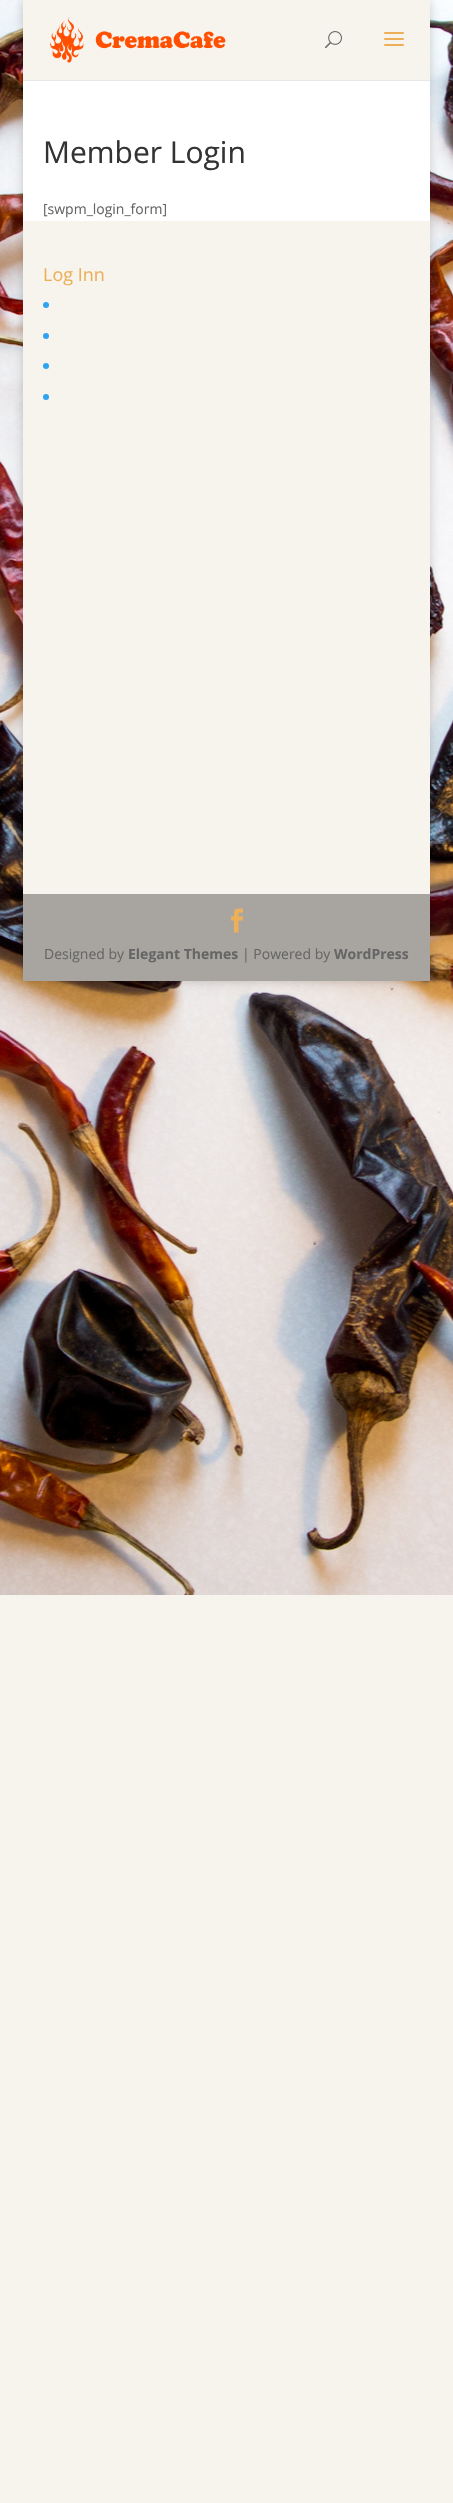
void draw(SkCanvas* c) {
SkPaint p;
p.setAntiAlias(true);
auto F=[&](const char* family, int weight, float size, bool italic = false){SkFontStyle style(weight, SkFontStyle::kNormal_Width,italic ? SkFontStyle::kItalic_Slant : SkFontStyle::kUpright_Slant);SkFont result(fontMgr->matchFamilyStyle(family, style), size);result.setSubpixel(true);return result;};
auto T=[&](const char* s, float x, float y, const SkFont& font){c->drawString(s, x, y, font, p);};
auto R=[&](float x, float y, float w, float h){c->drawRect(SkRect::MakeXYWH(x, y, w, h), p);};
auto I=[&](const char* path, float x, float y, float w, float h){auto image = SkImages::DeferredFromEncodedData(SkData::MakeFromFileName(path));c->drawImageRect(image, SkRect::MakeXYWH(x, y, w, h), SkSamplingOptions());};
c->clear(0xfff7f3ed);
I("1.png",0,0,453,1595);
p.setColor(0x33000000);
p.setMaskFilter(SkMaskFilter::MakeBlur(kNormal_SkBlurStyle, 5));
c->drawRect(SkRect::MakeXYWH(23,0,407,981),p);
p.setMaskFilter(nullptr);
p.setColor(0xffe6e6e6);
R(23,80,407,1);
p.setColor(0xfff7f3ed);
R(23,0,407,80);
I("2.png",50,17,176,46);
I("3.png",325,31,17,18);
I("4.png",384,32,20,14);
p.setColor(0xffffffff);
R(23,81,407,140);
auto f1 = F("Open Sans",400,30);
p.setColor(0xff333333);
T("Member Login",43,163,f1);
auto f2 = F("Open Sans",400,14);
p.setColor(0xff666666);
T("[swpm_login_form]",43,214,f2);
p.setColor(0xfff7f3ed);
R(23,221,407,673);
auto f3 = F("Open Sans",400,18);
p.setColor(0xffedb059);
T("Log Inn",43,281,f3);
p.setColor(0xff2ea3f2);
c->drawCircle(46,305,3,p);
c->drawCircle(46,336,3,p);
c->drawCircle(46,366,3,p);
c->drawCircle(46,397,3,p);
p.setColor(0xffa8a5a1);
R(23,894,407,87);
I("5.png",231,908,12,25);
p.setColor(0xff666666);
T("Designed by",44,959,f2);
auto f4 = F("Open Sans",700,14);
T("Elegant Themes",128,959,f4);
T("| Powered by",242,959,f2);
T("WordPress",334,959,f4);
}
